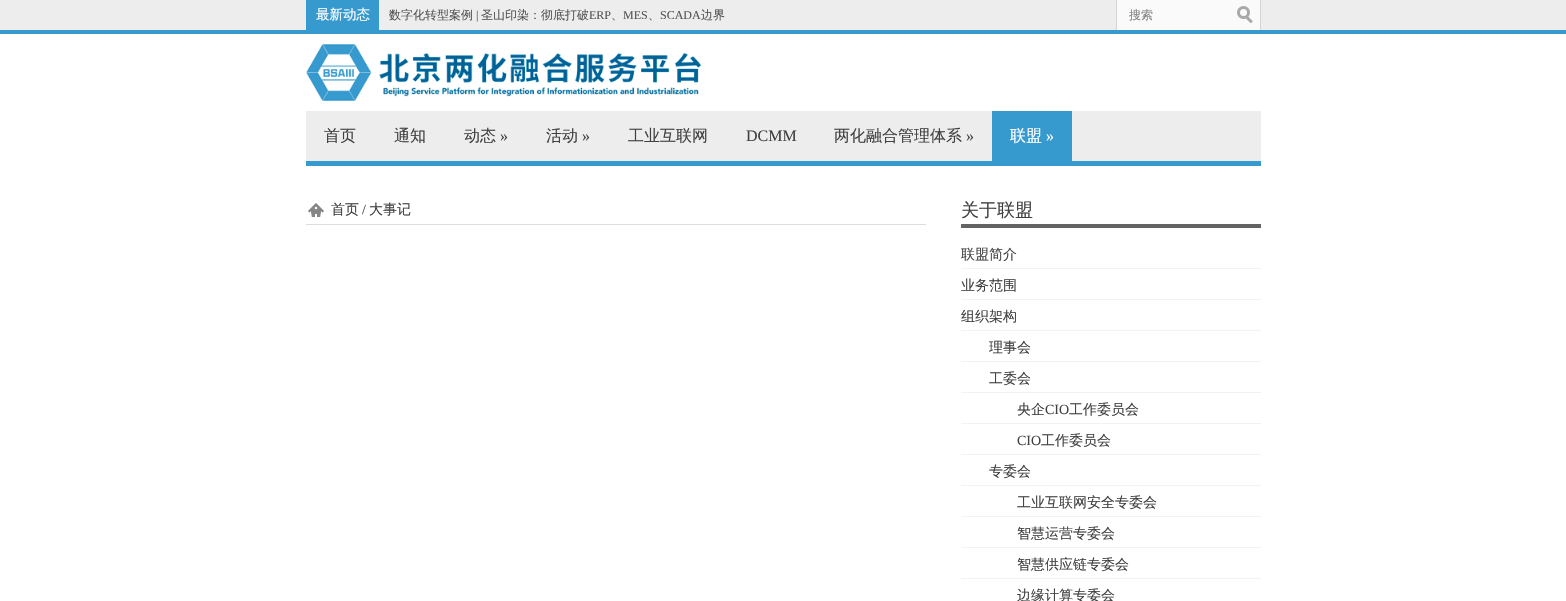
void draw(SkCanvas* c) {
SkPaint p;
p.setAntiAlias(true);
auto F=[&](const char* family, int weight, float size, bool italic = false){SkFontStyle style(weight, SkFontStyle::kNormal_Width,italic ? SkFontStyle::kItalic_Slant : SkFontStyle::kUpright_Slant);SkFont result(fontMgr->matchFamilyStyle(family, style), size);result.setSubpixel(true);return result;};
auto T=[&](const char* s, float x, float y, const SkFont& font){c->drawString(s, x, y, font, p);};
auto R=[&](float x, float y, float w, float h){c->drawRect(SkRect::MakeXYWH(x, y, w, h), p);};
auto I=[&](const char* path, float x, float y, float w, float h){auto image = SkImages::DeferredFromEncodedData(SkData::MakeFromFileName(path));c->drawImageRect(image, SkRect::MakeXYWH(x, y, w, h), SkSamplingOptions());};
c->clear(0xffffffff);
p.setColor(0xffededed);
R(0,0,1566,30);
p.setColor(0xff379acf);
R(0,30,1566,4);
R(306,0,73,30);
auto f1 = F("WenQuanYi Zen Hei",500,13.5);
p.setColor(0xffffffff);
T("最新动态",316,19,f1);
auto f2 = F("WenQuanYi Zen Hei",500,12);
p.setColor(0xff555555);
T("数字化转型案例",389,19,f2);
auto f3 = F("Liberation Serif",400,12);
T("|",476,19,f3);
T("圣山印染：彻底打破",481,19,f2);
T("ERP",589,19,f3);
T("、",611,19,f2);
T("MES",623,19,f3);
T("、",648,19,f2);
T("SCADA",660,19,f3);
T("边界",701,19,f2);
p.setColor(0xfffafafa);
R(1117,0,143,30);
I("1.png",1237,6,16,17);
p.setColor(0xffd4d4d4);
R(1260,0,1,30);
R(1116,0,1,30);
c->save();
c->clipRect(SkRect::MakeXYWH(1129,7,90,17));
p.setColor(0xff838383);
T("搜索",1129,19,f2);
c->restore();
I("2.png",306,44,395,57);
p.setColor(0xffededed);
R(306,111,955,50);
p.setColor(0xff379acf);
R(306,161,955,5);
auto f4 = F("WenQuanYi Zen Hei",500,16);
p.setColor(0xff404040);
T("首页",324,141,f4);
T("通知",394,141,f4);
T("动态",464,141,f4);
auto f5 = F("Liberation Serif",400,16);
T("»",500,141,f5);
T("活动",546,141,f4);
T("»",582,141,f5);
T("工业互联网",628,141,f4);
T("DCMM",746,141,f5);
T("两化融合管理体系",834,141,f4);
T("»",966,141,f5);
p.setColor(0xff379acf);
R(992,111,80,50);
p.setColor(0xffffffff);
T("联盟",1010,141,f4);
T("»",1046,141,f5);
p.setColor(0xffdddddd);
R(306,224,620,1);
I("3.png",308,203,16,14);
auto f6 = F("WenQuanYi Zen Hei",500,14);
p.setColor(0xff404040);
T("首页",331,214,f6);
auto f7 = F("Liberation Serif",400,14);
T("/",362,214,f7);
T("大事记",369,214,f6);
p.setColor(0xff636363);
R(961,224,300,4);
auto f8 = F("WenQuanYi Zen Hei",500,18);
p.setColor(0xff404040);
T("关于联盟",961,216,f8);
p.setColor(0xfff2f2f2);
R(961,268,300,1);
c->save();
c->clipRect(SkRect::MakeXYWH(961,238,300,30));
p.setColor(0xff404040);
T("联盟简介",961,259,f6);
c->restore();
p.setColor(0xfff2f2f2);
R(961,299,300,1);
p.setColor(0xff404040);
T("业务范围",961,290,f6);
p.setColor(0xfff2f2f2);
R(961,330,300,1);
p.setColor(0xff404040);
T("组织架构",961,321,f6);
p.setColor(0xfff2f2f2);
R(961,361,300,1);
p.setColor(0xff404040);
T("理事会",989,352,f6);
p.setColor(0xfff2f2f2);
R(961,392,300,1);
p.setColor(0xff404040);
T("工委会",989,383,f6);
p.setColor(0xfff2f2f2);
R(961,423,300,1);
p.setColor(0xff404040);
T("央企",1017,414,f6);
T("CIO",1045,414,f7);
T("工作委员会",1069,414,f6);
p.setColor(0xfff2f2f2);
R(961,454,300,1);
p.setColor(0xff404040);
T("CIO",1017,445,f7);
T("工作委员会",1041,445,f6);
p.setColor(0xfff2f2f2);
R(961,485,300,1);
p.setColor(0xff404040);
T("专委会",989,476,f6);
p.setColor(0xfff2f2f2);
R(961,516,300,1);
p.setColor(0xff404040);
T("工业互联网安全专委会",1017,507,f6);
p.setColor(0xfff2f2f2);
R(961,547,300,1);
p.setColor(0xff404040);
T("智慧运营专委会",1017,538,f6);
p.setColor(0xfff2f2f2);
R(961,578,300,1);
p.setColor(0xff404040);
T("智慧供应链专委会",1017,569,f6);
T("边缘计算专委会",1017,600,f6);
}
